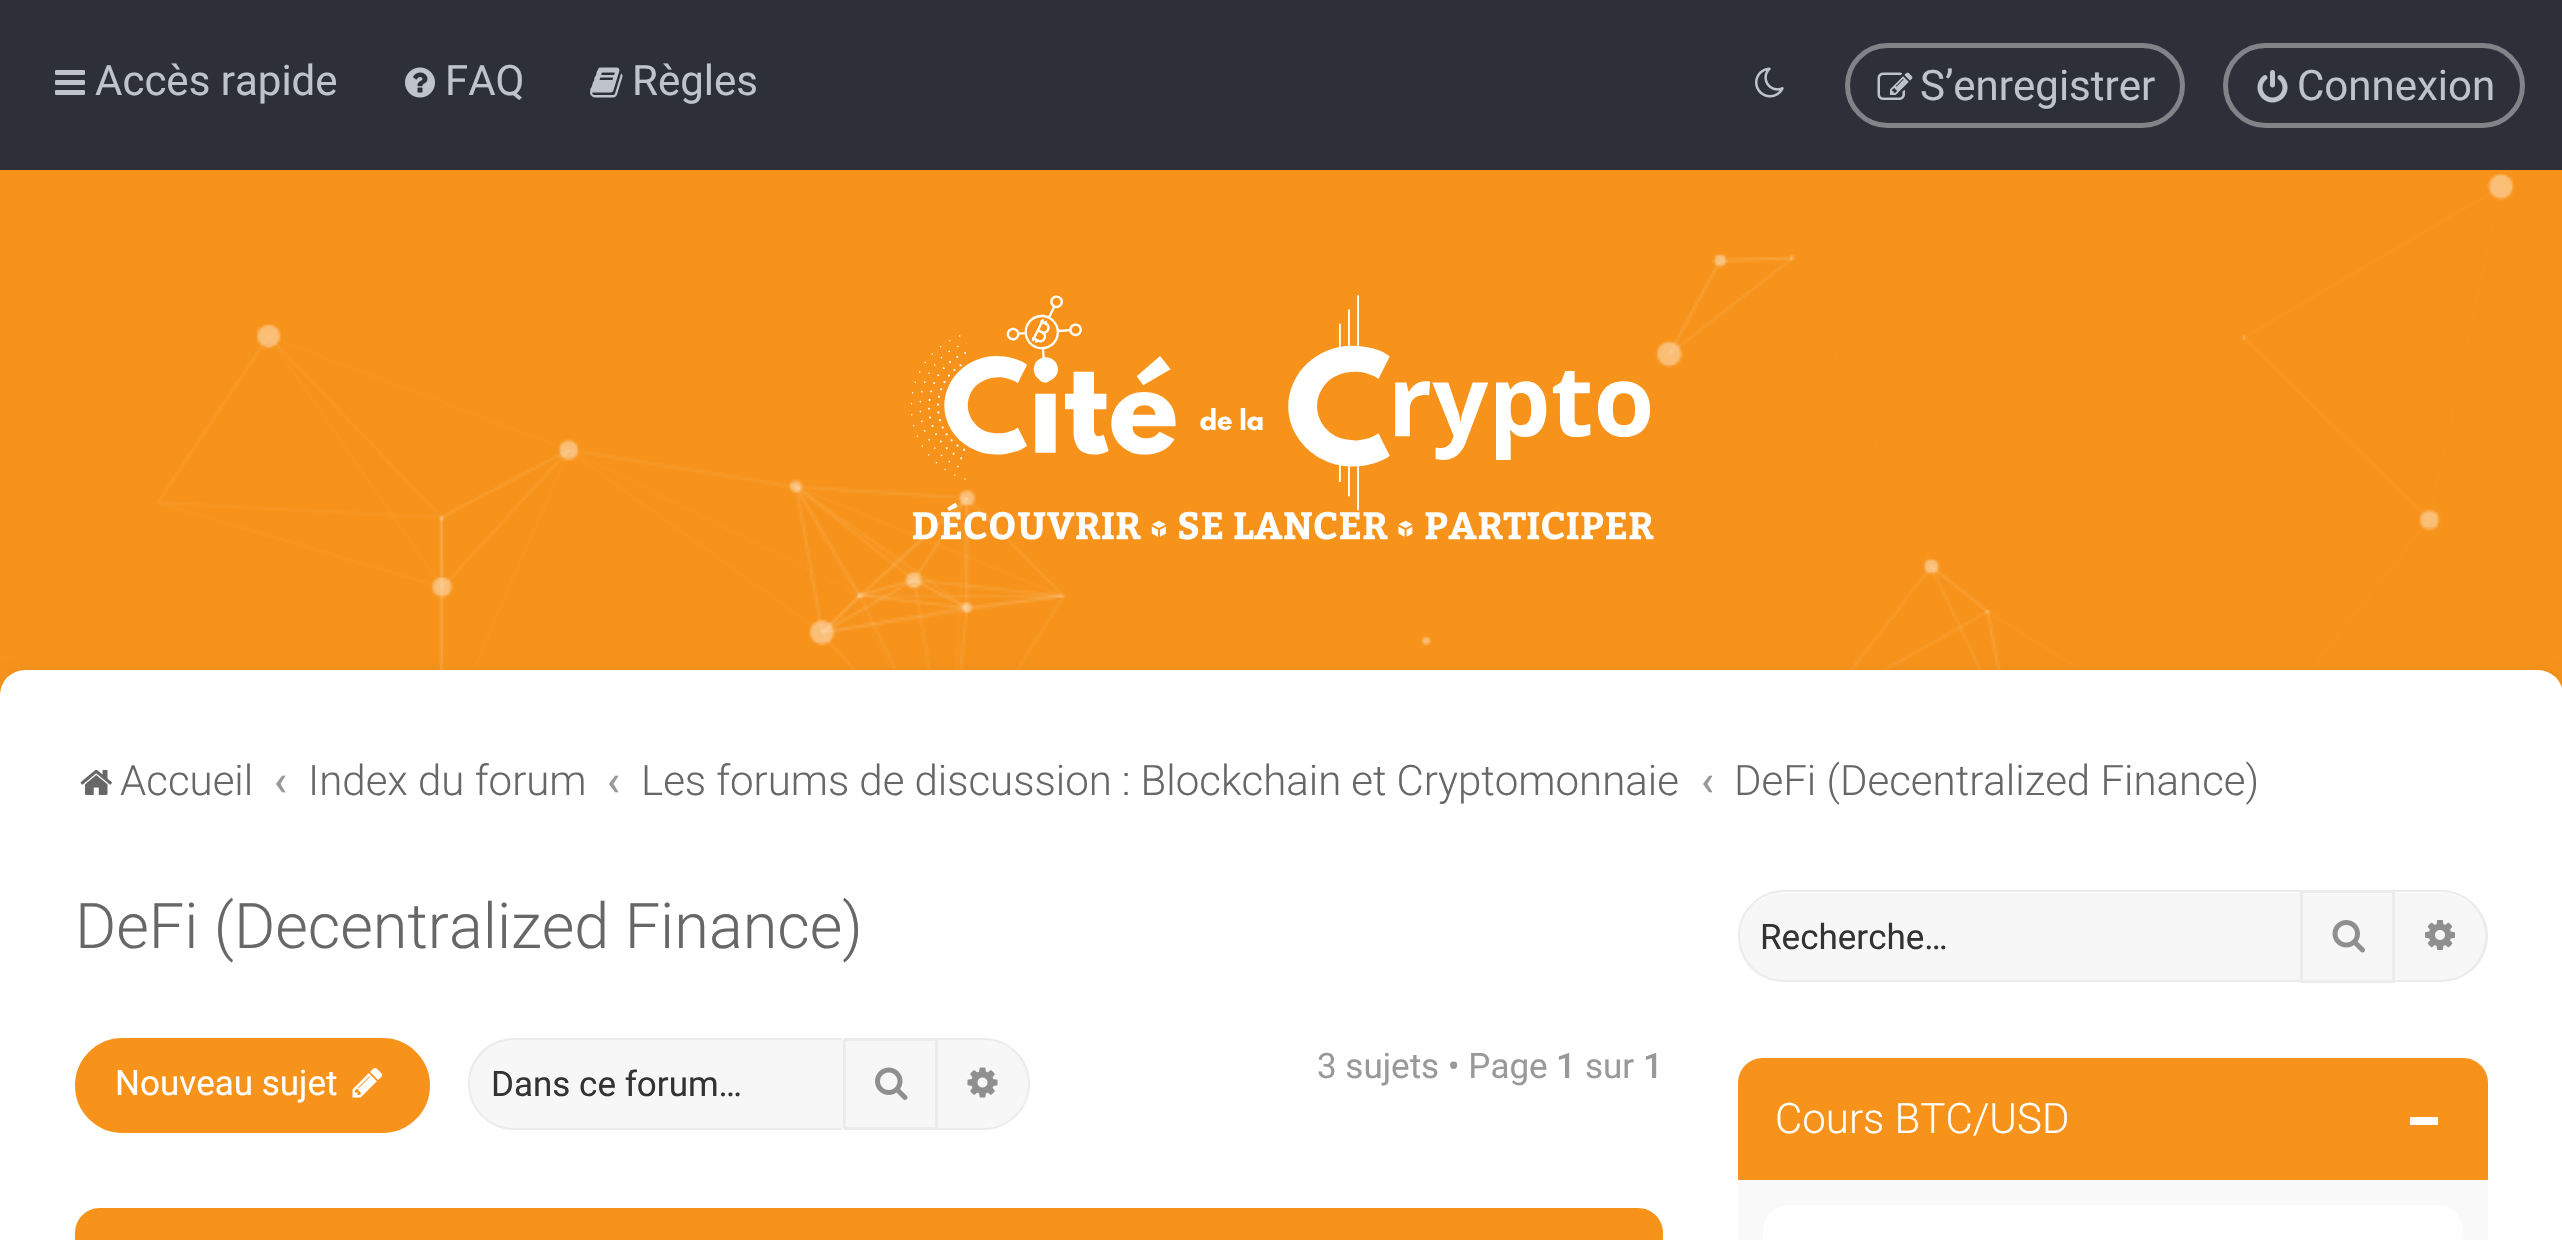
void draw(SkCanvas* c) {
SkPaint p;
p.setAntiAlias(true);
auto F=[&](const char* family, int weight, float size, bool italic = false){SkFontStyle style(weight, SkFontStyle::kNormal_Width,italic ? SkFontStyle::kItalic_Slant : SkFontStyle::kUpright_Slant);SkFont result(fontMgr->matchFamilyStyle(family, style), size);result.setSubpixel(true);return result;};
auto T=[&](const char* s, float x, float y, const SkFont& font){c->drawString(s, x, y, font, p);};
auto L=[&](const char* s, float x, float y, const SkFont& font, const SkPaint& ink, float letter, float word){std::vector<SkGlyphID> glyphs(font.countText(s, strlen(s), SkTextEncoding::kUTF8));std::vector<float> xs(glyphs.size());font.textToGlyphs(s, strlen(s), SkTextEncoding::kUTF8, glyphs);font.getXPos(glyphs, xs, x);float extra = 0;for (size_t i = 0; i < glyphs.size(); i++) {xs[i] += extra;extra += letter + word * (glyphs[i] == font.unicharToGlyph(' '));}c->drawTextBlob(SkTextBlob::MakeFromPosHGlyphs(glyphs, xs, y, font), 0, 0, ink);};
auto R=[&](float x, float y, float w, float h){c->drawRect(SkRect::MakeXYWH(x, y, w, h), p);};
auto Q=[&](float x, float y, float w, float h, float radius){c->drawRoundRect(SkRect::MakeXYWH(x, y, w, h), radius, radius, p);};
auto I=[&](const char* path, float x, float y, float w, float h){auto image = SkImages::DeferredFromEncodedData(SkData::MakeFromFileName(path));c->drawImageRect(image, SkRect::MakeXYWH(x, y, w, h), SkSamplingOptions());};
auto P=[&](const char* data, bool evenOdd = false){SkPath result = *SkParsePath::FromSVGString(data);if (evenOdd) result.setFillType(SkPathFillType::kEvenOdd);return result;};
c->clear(0xfff7931a);
p.setColor(0xff2d3039);
R(0,0,2562,170);
I("1.png",55,70,30,25);
auto f1 = F("Roboto",400,42);
p.setColor(0xffbec4c9);
T("Accès rapide",95,95,f1);
I("2.png",405,67,30,31);
T("FAQ",445,95,f1);
I("3.png",590,67,33,31);
T("Règles",632,95,f1);
I("4.png",1755,67,29,31);
p.setStroke(true);
p.setStrokeWidth(5);
p.setColor(0xff818388);
c->drawRoundRect(SkRect::MakeXYWH(1847.5,45.5,335,80),40,40,p);
I("5.png",1877,72,36,28);
p.setStroke(false);
p.setColor(0xffbec4c9);
T("S’enregistrer",1920,100,f1);
p.setStroke(true);
p.setColor(0xff818388);
c->drawRoundRect(SkRect::MakeXYWH(2225.5,45.5,297,80),40,40,p);
I("6.png",2257,70,31,33);
p.setStroke(false);
p.setColor(0xffbec4c9);
T("Connexion",2297,100,f1);
I("7.png",157,172,2358,498);
I("8.png",910,295,744,245);
p.setColor(0x0d000000);
p.setMaskFilter(SkMaskFilter::MakeBlur(kNormal_SkBlurStyle, 6));
c->drawRoundRect(SkRect::MakeXYWH(0,670,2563,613),25,25,p);
p.setMaskFilter(nullptr);
p.setColor(0xffffffff);
Q(0,670,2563,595,25);
I("9.png",80,770,32,25);
auto f2 = F("Roboto",300,42);
p.setColor(0xff676767);
T("Accueil",120,795,f2);
auto f3 = F("Roboto",500,42);
p.setColor(0xff999999);
T("‹",274,795,f3);
p.setColor(0xff676767);
T("Index du forum",308,795,f2);
p.setColor(0xff999999);
T("‹",607,795,f3);
p.setColor(0xff676767);
L("Les forums de discussion : Blockchain et Cryptomonnaie",641,795,f2,p,0,-.25);
p.setColor(0xff999999);
T("‹",1701,795,f3);
p.setColor(0xff676767);
T("DeFi (Decentralized Finance)",1734,795,f2);
auto f4 = F("Roboto",300,63);
T("DeFi (Decentralized Finance)",75,948,f4);
p.setColor(0xfff7931a);
c->drawRoundRect(SkRect::MakeXYWH(76.5,1039.5,352,92),46,46,p);
p.setStroke(true);
p.setStrokeWidth(3);
c->drawRoundRect(SkRect::MakeXYWH(76.5,1039.5,352,92),46,46,p);
auto f5 = F("Roboto",400,35);
p.setStroke(false);
p.setColor(0xffffffff);
T("Nouveau sujet",115,1095,f5);
I("10.png",352,1068,30,30);
p.setColor(0xfff7f7f7);
c->drawPath(P("M514 1040h329v88h-329c-24.5 0-44-19.5-44-44c0-24.5 19.5-44 44-44z"),p);
p.setColor(0xffedecec);
c->drawPath(P("M514 1038h328v92h-328c-26 0-46-21-46-46c0-26 20-46 46-46zm0 2h328v88h-328c-24 0-44-20-44-44c0-24 20-44 44-44z",true),p);
p.setColor(0xff333333);
T("Dans ce forum…",491,1096,f5);
p.setColor(0xfff7f7f7);
c->drawRect(SkRect::MakeXYWH(844.5,1039.5,92,89),p);
p.setStroke(true);
p.setColor(0xffedecec);
c->drawRect(SkRect::MakeXYWH(844.5,1039.5,92,89),p);
I("11.png",875,1067,33,33);
p.setStroke(false);
p.setColor(0xfff7f7f7);
c->drawPath(P("M938 1040h46c24.5 0 44 19.5 44 44c0 24.5-19.5 44-44 44h-46z"),p);
p.setColor(0xffedecec);
c->drawPath(P("M938 1038h46c25 0 46 20 46 46c0 25-21 46-46 46h-46zm0 2h46c24 0 44 20 44 44c0 24-20 44-44 44h-46z",true),p);
I("12.png",967,1067,31,31);
p.setColor(0xff999999);
T("3 sujets • Page",1317,1078,f5);
auto f6 = F("Roboto",500,35);
T("1",1556,1078,f6);
T("sur",1585,1078,f5);
T("1",1643,1078,f6);
p.setColor(0xfff7931a);
c->drawPath(P("M100 1208h1538c14 0 25 11 25 25v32h-1588v-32c0-14 11-25 25-25z"),p);
p.setColor(0xfff7f7f7);
c->drawPath(P("M1783.5 893h516.5v87h-516.5c-24 0-43.5-19.5-43.5-43.5c0-24 19.5-43.5 43.5-43.5z"),p);
p.setColor(0xffedecec);
c->drawPath(P("M1784 890h516v92h-516c-26 0-46-20-46-46c0-25 20-46 46-46zm0 2h516v88h-516c-24 0-44-20-44-44c0-24 20-44 44-44z",true),p);
p.setColor(0xff333333);
T("Recherche…",1760,949,f5);
p.setColor(0xfff7f7f7);
c->drawRect(SkRect::MakeXYWH(2301.5,891.5,92,90),p);
p.setStroke(true);
p.setColor(0xffedecec);
c->drawRect(SkRect::MakeXYWH(2301.5,891.5,92,90),p);
I("13.png",2332,920,33,33);
p.setStroke(false);
p.setColor(0xfff7f7f7);
c->drawPath(P("M2395 893h46.5c24 0 43.5 19.5 43.5 43.5c0 24-19.5 43.5-43.5 43.5h-46.5z"),p);
p.setColor(0xffedecec);
c->drawPath(P("M2395 890h46c26 0 47 21 47 46c0 26-21 46-47 46h-46zm0 2h46c24 0 44 20 44 44c0 24-20 44-44 44h-46z",true),p);
I("14.png",2425,920,30,30);
p.setColor(0xfff9f9f9);
Q(1738,1058,750,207,25);
p.setColor(0xfff7931a);
c->drawPath(P("M1763 1058h700c14 0 25 11 25 25v97h-750v-97c0-14 11-25 25-25z"),p);
p.setColor(0xffffffff);
T("Cours BTC/USD",1775,1133,f2);
R(2410,1117,28,8);
Q(1763,1205,700,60,25);
}
